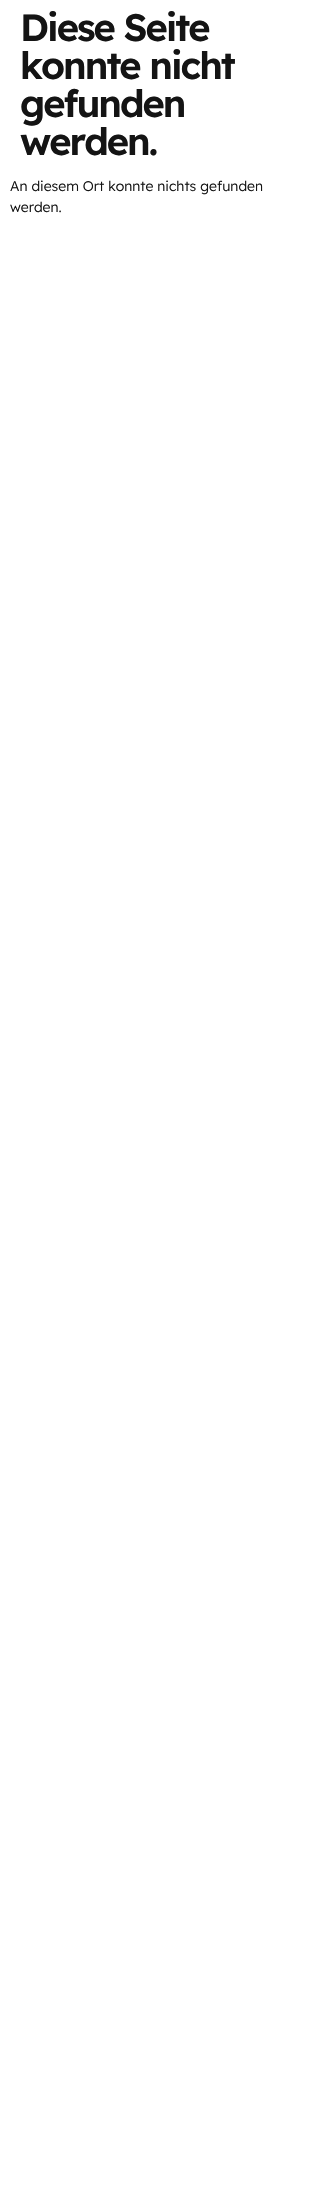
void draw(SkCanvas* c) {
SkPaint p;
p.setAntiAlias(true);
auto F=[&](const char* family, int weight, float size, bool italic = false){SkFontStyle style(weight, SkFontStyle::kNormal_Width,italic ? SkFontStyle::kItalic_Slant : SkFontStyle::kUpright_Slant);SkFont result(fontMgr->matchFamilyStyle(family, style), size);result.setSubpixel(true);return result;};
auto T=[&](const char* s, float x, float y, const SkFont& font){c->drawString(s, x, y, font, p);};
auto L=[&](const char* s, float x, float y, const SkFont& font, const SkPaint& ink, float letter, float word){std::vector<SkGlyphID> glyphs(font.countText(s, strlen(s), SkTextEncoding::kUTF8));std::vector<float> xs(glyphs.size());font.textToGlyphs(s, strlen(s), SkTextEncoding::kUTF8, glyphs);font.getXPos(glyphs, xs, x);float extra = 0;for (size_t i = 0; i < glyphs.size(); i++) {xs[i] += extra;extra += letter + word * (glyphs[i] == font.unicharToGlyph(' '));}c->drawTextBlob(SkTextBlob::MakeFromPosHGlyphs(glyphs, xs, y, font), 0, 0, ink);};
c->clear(0xffffffff);
auto f1 = F("Lexend",600,38);
p.setColor(0xff141414);
L("Diese Seite",20,41,f1,p,-2,0);
L("konnte nicht",20,79,f1,p,-2,0);
L("gefunden",20,117,f1,p,-2,0);
L("werden.",20,155,f1,p,-2,0);
auto f2 = F("Lexend",300,14);
T("An diesem Ort konnte nichts gefunden",10,191,f2);
T("werden.",10,212,f2);
}
